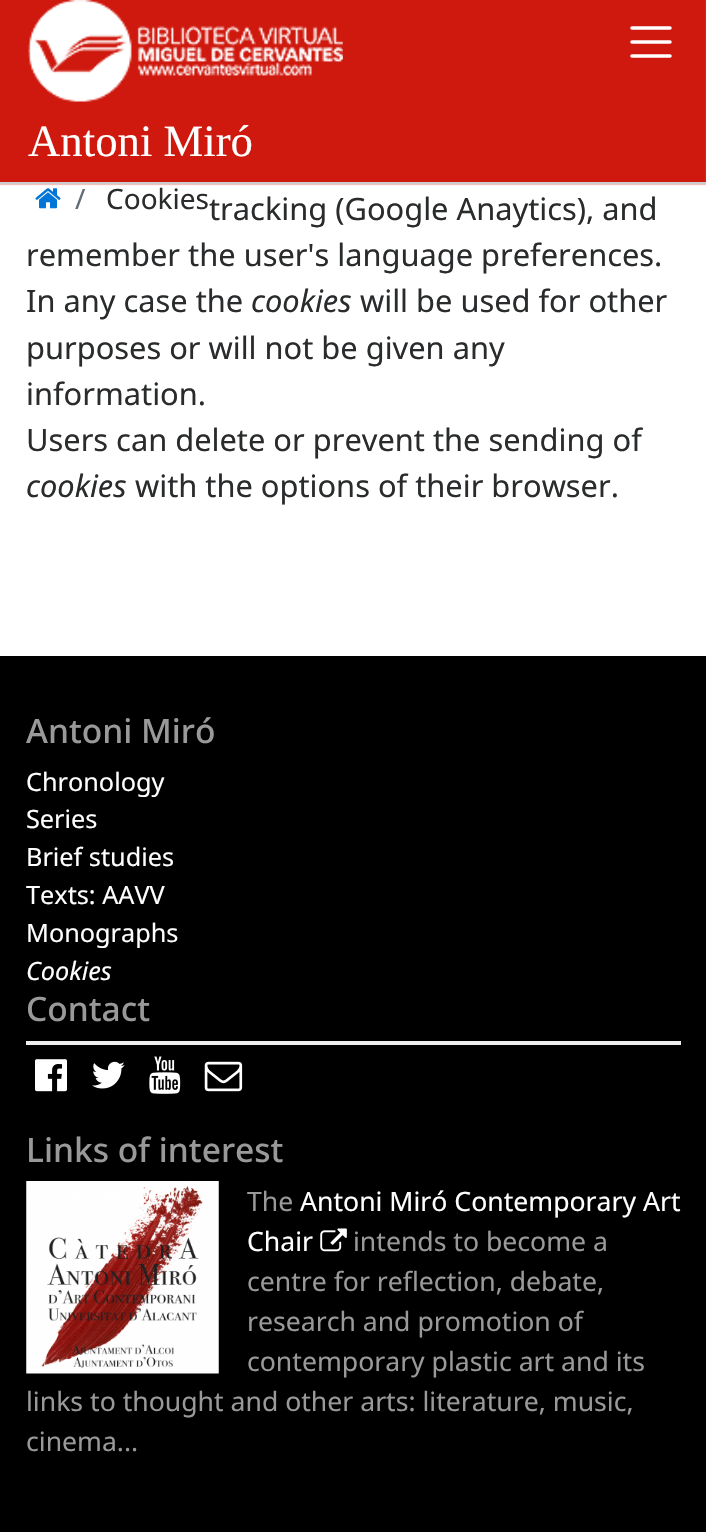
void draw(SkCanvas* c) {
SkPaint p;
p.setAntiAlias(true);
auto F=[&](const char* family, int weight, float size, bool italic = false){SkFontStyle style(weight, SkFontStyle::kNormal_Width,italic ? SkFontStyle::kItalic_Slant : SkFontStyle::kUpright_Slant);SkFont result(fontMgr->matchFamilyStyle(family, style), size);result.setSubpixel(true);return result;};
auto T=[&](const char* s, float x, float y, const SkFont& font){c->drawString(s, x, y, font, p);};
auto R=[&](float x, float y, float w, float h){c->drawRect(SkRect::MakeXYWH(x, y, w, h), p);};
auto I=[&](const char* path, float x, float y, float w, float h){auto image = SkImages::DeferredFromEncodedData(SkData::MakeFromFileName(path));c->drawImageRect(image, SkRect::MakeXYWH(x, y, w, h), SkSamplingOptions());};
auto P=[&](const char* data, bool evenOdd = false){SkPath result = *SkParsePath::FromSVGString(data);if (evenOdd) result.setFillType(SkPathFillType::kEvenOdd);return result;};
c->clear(0xffffffff);
I("1.png",0,0,706,186);
p.setColor(0xffcccccc);
R(0,182,706,2);
I("2.png",28,0,315,102);
p.setStroke(true);
p.setStrokeWidth(3.5);
p.setStrokeCap(SkPaint::kRound_Cap);
p.setColor(0xffffffff);
c->drawPath(P("M632 28h38m-38 14h38m-38 14h38"),p);
auto f1 = F("Liberation Serif",400,44.75);
p.setStroke(false);
T("Antoni Miró",28,156,f1);
I("3.png",35,188,26,21);
auto f2 = F("Noto Sans",400,28);
p.setColor(0xff636c72);
T("/",75,209,f2);
p.setColor(0xff292b2c);
T("Cookies",106,209,f2);
auto f3 = F("Noto Sans",400,30.8);
T("tracking (Google Anaytics), and",209,220,f3);
T("remember the user's language preferences.",26,266,f3);
T("In any case the",26,312,f3);
auto f4 = F("Noto Sans",400,30.8,true);
T("cookies",251,312,f4);
T("will be used for other",360,312,f3);
T("purposes or will not be given any",26,359,f3);
T("information.",26,405,f3);
T("Users can delete or prevent the sending of",26,451,f3);
T("cookies",26,497,f4);
T("with the options of their browser.",135,497,f3);
p.setColor(0xff000000);
R(0,656,706,876);
auto f5 = F("Noto Sans",500,33.5);
p.setColor(0xff999999);
T("Antoni Miró",26,743,f5);
auto f6 = F("Noto Sans",400,25.25);
p.setColor(0xffffffff);
T("Chronology",26,791,f6);
T("Series",26,828,f6);
T("Brief studies",26,866,f6);
T("Texts: AAVV",26,904,f6);
T("Monographs",26,942,f6);
auto f7 = F("Noto Sans",400,25.25,true);
T("Cookies",26,980,f7);
p.setColor(0xff999999);
T("Contact",26,1021,f5);
p.setColor(0xffeeeeee);
R(26,1041,655,4);
I("4.png",35,1059,32,33);
I("5.png",92,1061,33,28);
I("6.png",149,1056,32,38);
I("7.png",204,1061,39,31);
p.setColor(0xff999999);
T("Links of interest",26,1162,f5);
I("8.png",26,1181,193,193);
auto f8 = F("Noto Sans",400,26.6);
T("The",247,1211,f8);
p.setColor(0xffffffff);
T("Antoni Miró Contemporary Art",300,1211,f8);
T("Chair",247,1251,f8);
I("9.png",320,1228,27,24);
p.setColor(0xff999999);
T("intends to become a",353,1251,f8);
T("centre for reflection, debate,",247,1291,f8);
T("research and promotion of",247,1331,f8);
T("contemporary plastic art and its",247,1371,f8);
T("links to thought and other arts: literature, music,",26,1411,f8);
T("cinema...",26,1451,f8);
}
